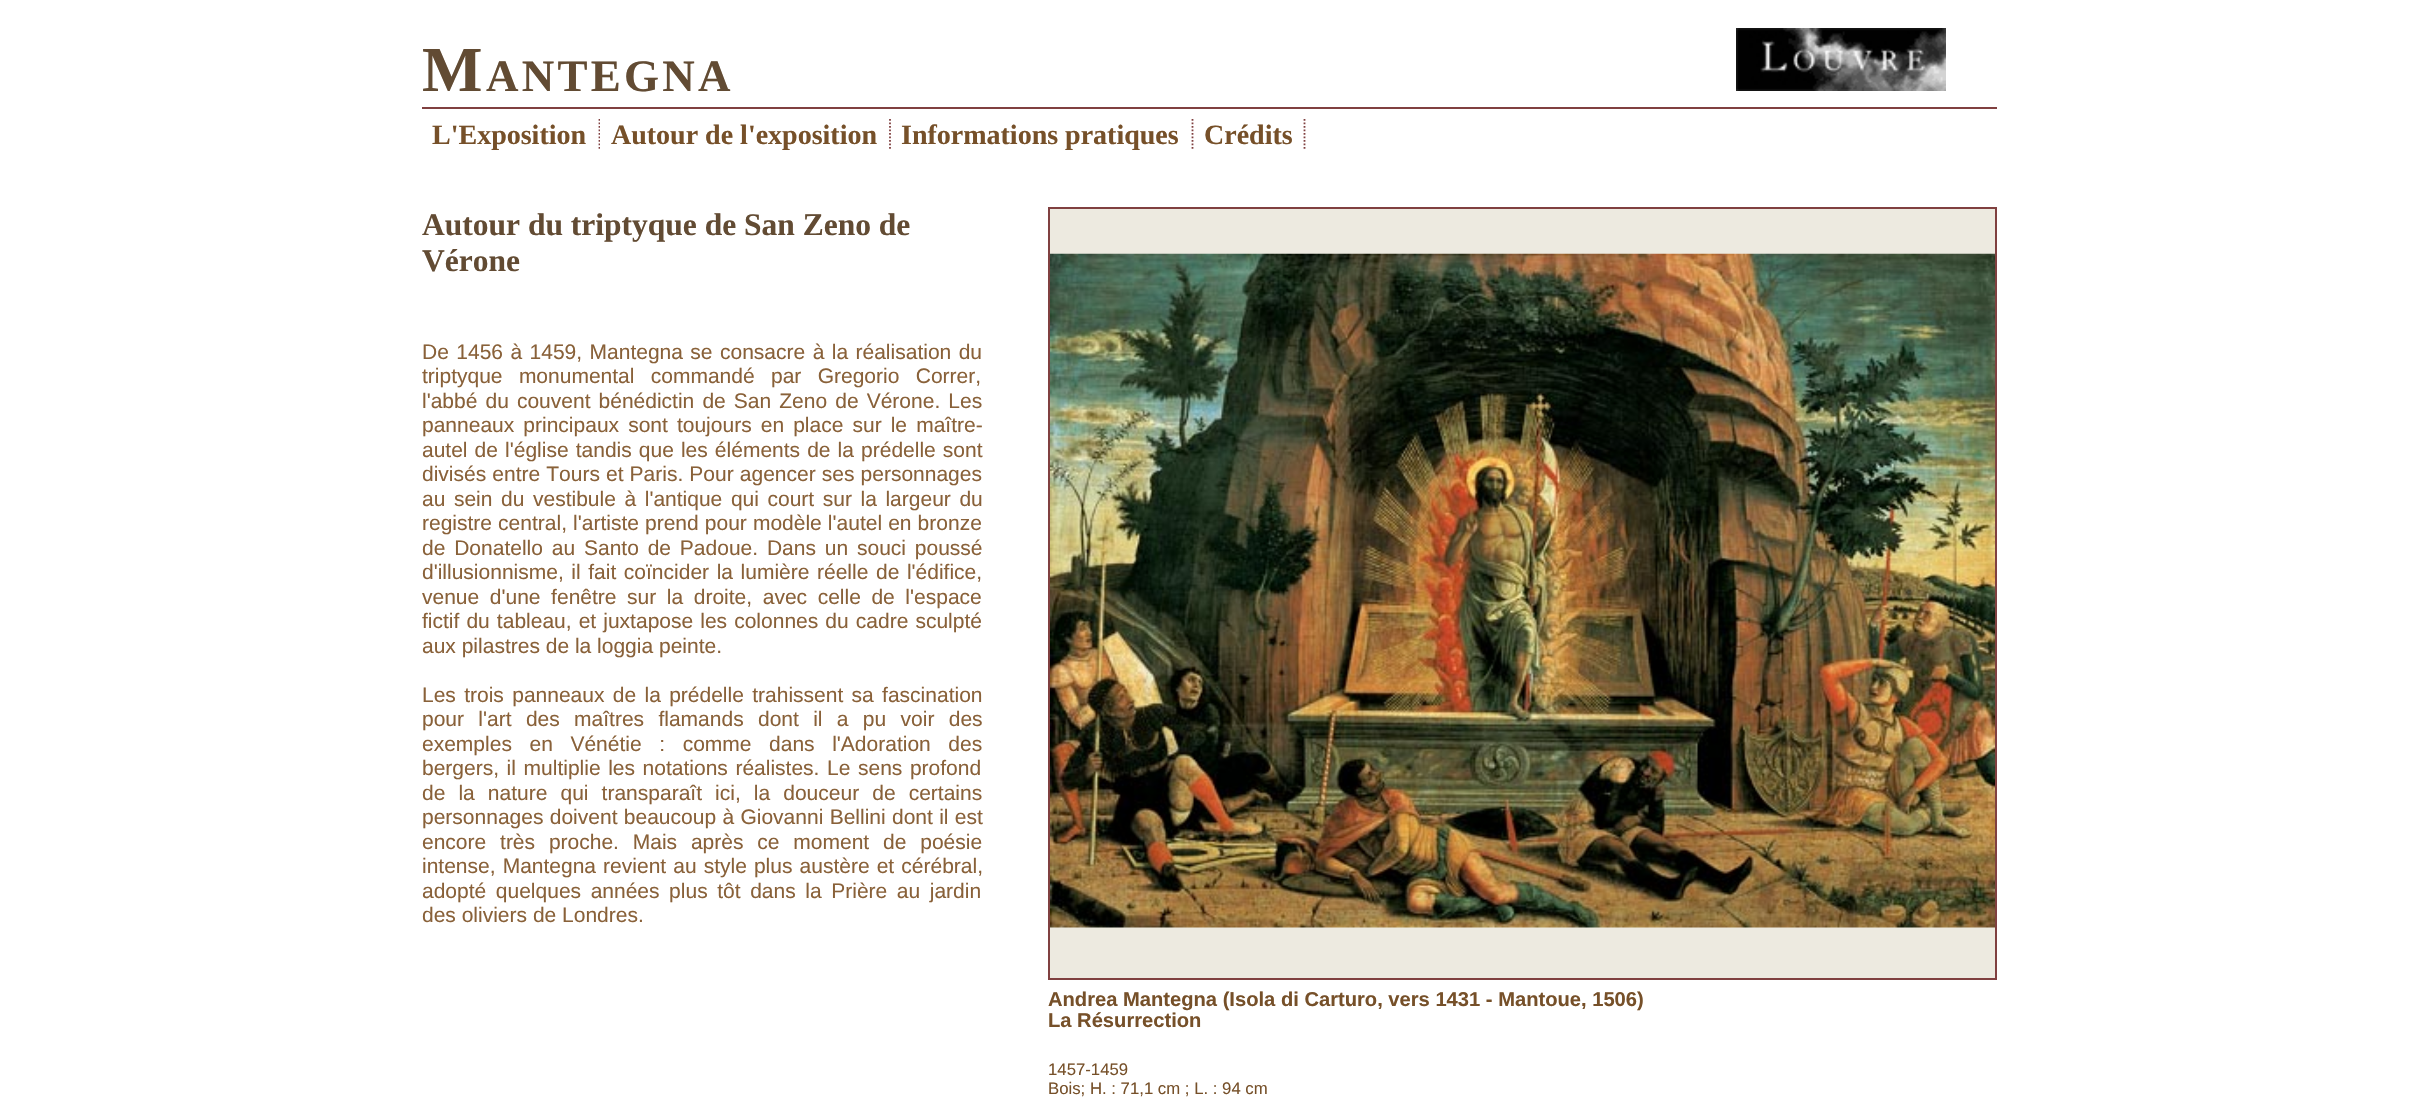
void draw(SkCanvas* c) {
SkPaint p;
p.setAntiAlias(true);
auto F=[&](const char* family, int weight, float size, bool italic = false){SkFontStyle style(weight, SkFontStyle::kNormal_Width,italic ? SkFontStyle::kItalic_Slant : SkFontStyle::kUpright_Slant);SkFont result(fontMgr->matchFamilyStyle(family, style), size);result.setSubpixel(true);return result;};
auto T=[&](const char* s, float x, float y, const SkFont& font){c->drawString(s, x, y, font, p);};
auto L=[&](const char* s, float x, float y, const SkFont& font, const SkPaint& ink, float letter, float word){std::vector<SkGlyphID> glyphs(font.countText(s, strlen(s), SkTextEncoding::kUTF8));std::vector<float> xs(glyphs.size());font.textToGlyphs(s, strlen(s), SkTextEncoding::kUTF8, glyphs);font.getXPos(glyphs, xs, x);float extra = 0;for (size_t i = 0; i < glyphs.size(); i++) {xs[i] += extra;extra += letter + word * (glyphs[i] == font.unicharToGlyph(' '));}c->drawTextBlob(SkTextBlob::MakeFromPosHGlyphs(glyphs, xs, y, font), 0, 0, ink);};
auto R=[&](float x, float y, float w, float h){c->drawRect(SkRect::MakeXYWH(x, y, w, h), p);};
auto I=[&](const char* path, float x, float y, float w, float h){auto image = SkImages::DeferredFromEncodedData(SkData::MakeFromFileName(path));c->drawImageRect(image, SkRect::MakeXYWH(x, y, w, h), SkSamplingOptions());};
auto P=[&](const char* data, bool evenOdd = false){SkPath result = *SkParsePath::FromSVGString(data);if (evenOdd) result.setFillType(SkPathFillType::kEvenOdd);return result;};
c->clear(0xffffffff);
p.setColor(0xff804040);
R(422,107,1575,2);
auto f1 = F("Liberation Serif",700,64);
p.setColor(0xff624b33);
L("M",422,91,f1,p,3.25,0);
auto f2 = F("Liberation Serif",700,45);
L("ANTEGNA",486,91,f2,p,3.25,0);
I("1.png",1736,28,210,63);
p.setStroke(true);
p.setStrokeWidth(1.8);
p.setColor(0xff804040);
p.setPathEffect(SkDashPathEffect::Make({{1.75f,1.75f}}, 0));
c->drawPath(P("M599.5 119v31.5"),p);
p.setPathEffect(nullptr);
auto f3 = F("Liberation Serif",700,28);
p.setStroke(false);
p.setColor(0xff765029);
T("L'Exposition",432,144,f3);
p.setColor(0xffffffff);
R(600,119,1,30);
p.setStroke(true);
p.setColor(0xff804040);
p.setPathEffect(SkDashPathEffect::Make({{1.75f,1.75f}}, 0));
c->drawPath(P("M890 119v31.5"),p);
p.setPathEffect(nullptr);
p.setStroke(false);
p.setColor(0xff765029);
T("Autour de l'exposition",611,144,f3);
p.setStroke(true);
p.setColor(0xff804040);
p.setPathEffect(SkDashPathEffect::Make({{1.75f,1.75f}}, 0));
c->drawPath(P("M1192.5 119v31.5"),p);
p.setPathEffect(nullptr);
p.setStroke(false);
p.setColor(0xff765029);
T("Informations pratiques",901,144,f3);
p.setStroke(true);
p.setColor(0xff804040);
p.setPathEffect(SkDashPathEffect::Make({{1.75f,1.75f}}, 0));
c->drawPath(P("M1304.5 119v31.5"),p);
p.setPathEffect(nullptr);
p.setStroke(false);
p.setColor(0xff765029);
T("Crédits",1204,144,f3);
auto f4 = F("Liberation Serif",700,31.5);
p.setColor(0xff624b33);
T("Autour du triptyque de San Zeno de",422,235,f4);
T("Vérone",422,271,f4);
auto f5 = F("Liberation Sans",400,21);
p.setColor(0xff896139);
L("De 1456 à 1459, Mantegna se consacre à la réalisation du",422,359,f5,p,0,1.6);
L("triptyque monumental commandé par Gregorio Correr,",422,383,f5,p,0,10.5);
L("l'abbé du couvent bénédictin de San Zeno de Vérone. Les",422,408,f5,p,0,2.25);
L("panneaux principaux sont toujours en place sur le maître-",422,432,f5,p,0,3.25);
L("autel de l'église tandis que les éléments de la prédelle sont",422,457,f5,p,0,1.25);
L("divisés entre Tours et Paris. Pour agencer ses personnages",422,481,f5,p,0,.25);
L("au sein du vestibule à l'antique qui court sur la largeur du",422,506,f5,p,0,2.75);
L("registre central, l'artiste prend pour modèle l'autel en bronze",422,530,f5,p,0,.25);
L("de Donatello au Santo de Padoue. Dans un souci poussé",422,555,f5,p,0,3);
L("d'illusionnisme, il fait coïncider la lumière réelle de l'édifice,",422,579,f5,p,0,1.75);
L("venue d'une fenêtre sur la droite, avec celle de l'espace",422,604,f5,p,0,4.75);
L("fictif du tableau, et juxtapose les colonnes du cadre sculpté",422,628,f5,p,0,1.25);
T("aux pilastres de la loggia peinte.",422,653,f5);
L("Les trois panneaux de la prédelle trahissent sa fascination",422,702,f5,p,0,2.5);
L("pour l'art des maîtres flamands dont il a pu voir des",422,726,f5,p,0,8.5);
L("exemples en Vénétie : comme dans l'Adoration des",422,751,f5,p,0,11.75);
L("bergers, il multiplie les notations réalistes. Le sens profond",422,775,f5,p,0,1.75);
L("de la nature qui transparaît ici, la douceur de certains",422,800,f5,p,0,7.25);
L("personnages doivent beaucoup à Giovanni Bellini dont il est",422,824,f5,p,0,.5);
L("encore très proche. Mais après ce moment de poésie",422,849,f5,p,0,8);
L("intense, Mantegna revient au style plus austère et cérébral,",422,873,f5,p,0,1.25);
L("adopté quelques années plus tôt dans la Prière au jardin",422,898,f5,p,0,3.75);
T("des oliviers de Londres.",422,922,f5);
p.setColor(0xffedeae0);
c->drawRect(SkRect::MakeXYWH(1049,208,947,771),p);
p.setStroke(true);
p.setStrokeWidth(2);
p.setColor(0xff804040);
c->drawRect(SkRect::MakeXYWH(1049,208,947,771),p);
I("2.png",1050,253,945,675);
auto f6 = F("Liberation Sans",700,20.15);
p.setStroke(false);
p.setColor(0xff765029);
T("Andrea Mantegna (Isola di Carturo, vers 1431 - Mantoue, 1506)",1048,1006,f6);
T("La Résurrection",1048,1027,f6);
auto f7 = F("Liberation Sans",400,16.75);
T("1457-1459",1048,1075,f7);
T("Bois; H. : 71,1 cm ; L. : 94 cm",1048,1094,f7);
}
